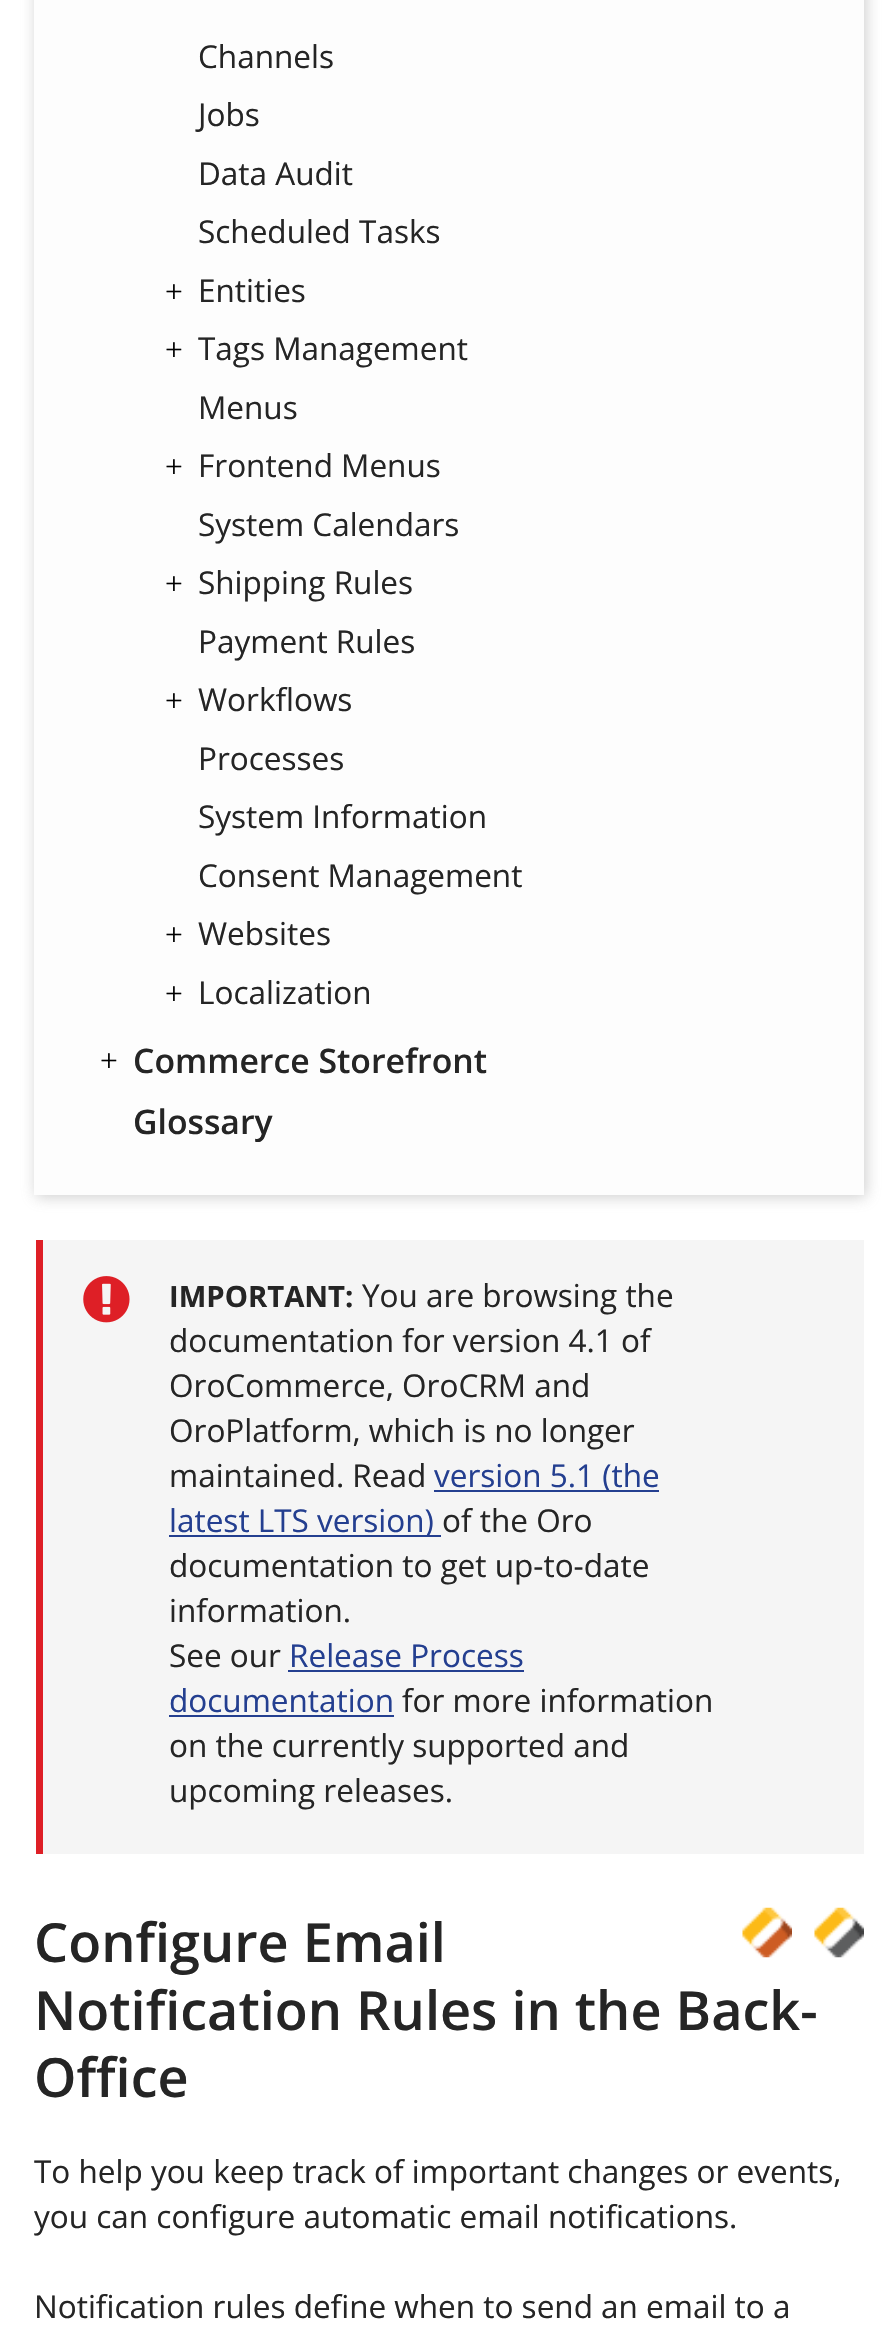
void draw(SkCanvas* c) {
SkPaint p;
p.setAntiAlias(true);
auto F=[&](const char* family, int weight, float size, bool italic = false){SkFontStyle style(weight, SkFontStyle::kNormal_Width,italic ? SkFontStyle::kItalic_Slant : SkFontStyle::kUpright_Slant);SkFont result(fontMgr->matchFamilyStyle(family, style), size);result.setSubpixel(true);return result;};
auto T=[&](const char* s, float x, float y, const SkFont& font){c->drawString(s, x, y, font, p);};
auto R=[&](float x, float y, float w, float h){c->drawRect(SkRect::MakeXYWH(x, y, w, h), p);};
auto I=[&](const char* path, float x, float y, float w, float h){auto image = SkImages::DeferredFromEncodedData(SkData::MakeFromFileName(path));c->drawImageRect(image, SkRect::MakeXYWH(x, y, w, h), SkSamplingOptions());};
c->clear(0xffffffff);
p.setColor(0x66858585);
p.setMaskFilter(SkMaskFilter::MakeBlur(kNormal_SkBlurStyle, 7));
c->drawRect(SkRect::MakeXYWH(36,-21,830,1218),p);
p.setMaskFilter(nullptr);
p.setColor(0xfffdfdfd);
R(34,0,830,1195);
auto f1 = F("Open Sans",400,31.5);
p.setColor(0xff252525);
T("Channels",198,68,f1);
T("Jobs",198,126,f1);
T("Data Audit",198,185,f1);
T("Scheduled Tasks",198,243,f1);
auto f2 = F("Liberation Serif",400,31.5);
p.setColor(0xff000000);
T("+",165,302,f2);
p.setColor(0xff252525);
T("Entities",198,302,f1);
p.setColor(0xff000000);
T("+",165,360,f2);
p.setColor(0xff252525);
T("Tags Management",198,360,f1);
T("Menus",198,419,f1);
p.setColor(0xff000000);
T("+",165,477,f2);
p.setColor(0xff252525);
T("Frontend Menus",198,477,f1);
T("System Calendars",198,536,f1);
p.setColor(0xff000000);
T("+",165,594,f2);
p.setColor(0xff252525);
T("Shipping Rules",198,594,f1);
T("Payment Rules",198,653,f1);
p.setColor(0xff000000);
T("+",165,711,f2);
p.setColor(0xff252525);
T("Workflows",198,711,f1);
T("Processes",198,770,f1);
T("System Information",198,828,f1);
T("Consent Management",198,887,f1);
p.setColor(0xff000000);
T("+",165,945,f2);
p.setColor(0xff252525);
T("Websites",198,945,f1);
p.setColor(0xff000000);
T("+",165,1004,f2);
p.setColor(0xff252525);
T("Localization",198,1004,f1);
p.setColor(0xff000000);
T("+",100,1071,f2);
auto f3 = F("Open Sans",600,33.75);
p.setColor(0xff252525);
T("Commerce Storefront",133,1073,f3);
T("Glossary",133,1134,f3);
p.setColor(0xfff5f5f5);
R(43,1240,821,614);
p.setColor(0xffde1f26);
R(36,1240,7,614);
p.setColor(0xff252525);
T("You are browsing the",362,1307,f1);
T("documentation for version 4.1 of",169,1352,f1);
T("OroCommerce, OroCRM and",169,1397,f1);
T("OroPlatform, which is no longer",169,1442,f1);
T("maintained. Read",169,1487,f1);
p.setColor(0xff243f90);
R(434,1490,225,2);
T("version 5.1 (the",434,1487,f1);
R(169,1535,272,2);
T("latest LTS version)",169,1532,f1);
p.setColor(0xff252525);
T("of the Oro",442,1532,f1);
T("documentation to get up-to-date",169,1577,f1);
T("information.",169,1622,f1);
I("1.png",83,1276,47,47);
auto f4 = F("Open Sans",700,29.25);
T("IMPORTANT:",169,1307,f4);
T("See our",169,1667,f1);
p.setColor(0xff243f90);
T("Release Process",289,1667,f1);
R(288,1670,236,2);
T("documentation",169,1712,f1);
R(169,1715,225,2);
p.setColor(0xff252525);
T("for more information",402,1712,f1);
T("on the currently supported and",169,1757,f1);
T("upcoming releases.",169,1802,f1);
I("2.png",742,1907,50,51);
I("3.png",814,1907,50,51);
auto f5 = F("Open Sans",600,54);
T("Configure Email",34,1962,f5);
T("Notification Rules in the Back-",34,2030,f5);
T("Office",34,2097,f5);
T("To help you keep track of important changes or events,",34,2183,f1);
T("you can configure automatic email notifications.",34,2228,f1);
T("Notification rules define when to send an email to a",34,2318,f1);
}
